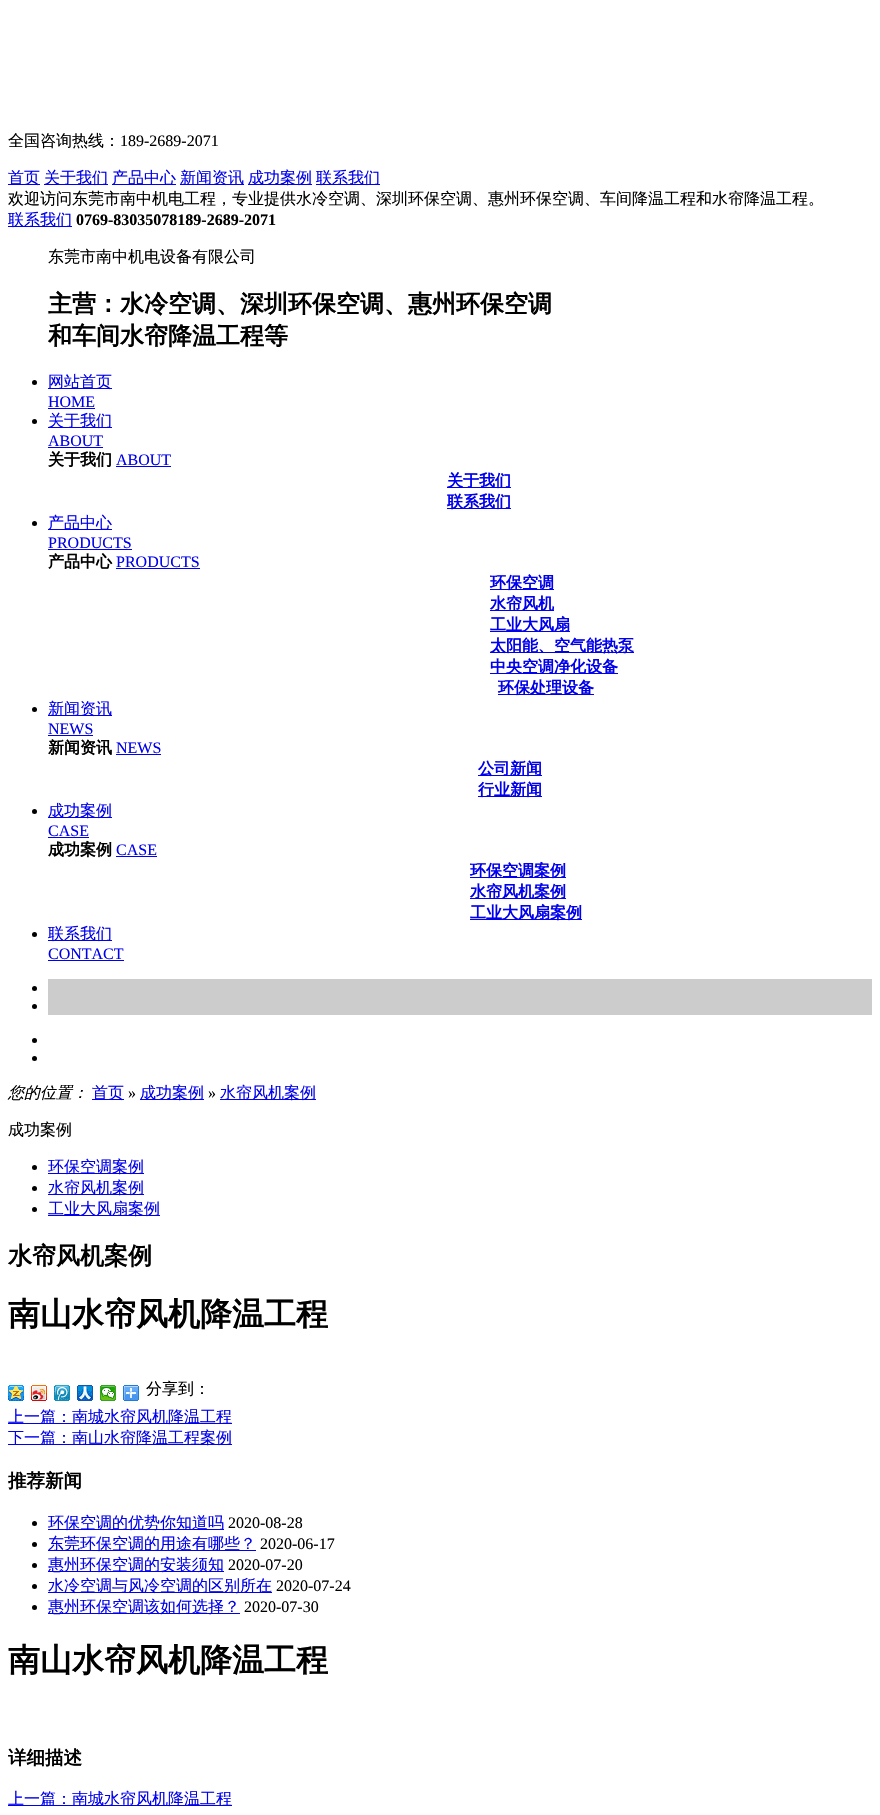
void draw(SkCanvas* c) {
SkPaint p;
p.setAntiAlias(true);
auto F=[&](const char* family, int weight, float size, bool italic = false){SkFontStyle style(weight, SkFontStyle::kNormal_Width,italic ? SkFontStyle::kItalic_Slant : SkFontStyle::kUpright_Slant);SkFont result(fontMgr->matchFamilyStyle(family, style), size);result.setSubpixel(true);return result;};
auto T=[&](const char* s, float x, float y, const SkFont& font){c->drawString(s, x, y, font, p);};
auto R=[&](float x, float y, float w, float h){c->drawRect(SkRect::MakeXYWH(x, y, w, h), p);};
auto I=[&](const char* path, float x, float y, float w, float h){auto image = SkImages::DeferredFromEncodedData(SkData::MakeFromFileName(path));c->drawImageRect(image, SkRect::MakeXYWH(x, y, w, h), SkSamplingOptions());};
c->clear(0xffffffff);
auto f1 = F("WenQuanYi Zen Hei",500,16);
p.setColor(0xff000000);
T("全国咨询热线：",8,146,f1);
auto f2 = F("Liberation Serif",400,16);
T("189-2689-2071",120,146,f2);
p.setColor(0xff0000ee);
R(8,184,32,1);
T("首页",8,183,f1);
R(44,184,64,1);
T("关于我们",44,183,f1);
R(112,184,64,1);
T("产品中心",112,183,f1);
R(180,184,64,1);
T("新闻资讯",180,183,f1);
R(248,184,64,1);
T("成功案例",248,183,f1);
R(316,184,64,1);
T("联系我们",316,183,f1);
p.setColor(0xff000000);
T("欢迎访问东莞市南中机电工程，专业提供水冷空调、深圳环保空调、惠州环保空调、车间降温工程和水帘降温工程。",8,204,f1);
p.setColor(0xff0000ee);
R(8,226,64,1);
T("联系我们",8,225,f1);
auto f3 = F("Liberation Serif",700,16);
p.setColor(0xff000000);
T("0769-83035078189-2689-2071",76,225,f3);
T("东莞市南中机电设备有限公司",48,262,f1);
auto f4 = F("WenQuanYi Zen Hei",700,24);
T("主营：水冷空调、深圳环保空调、惠州环保空调",48,312,f4);
T("和车间水帘降温工程等",48,344,f4);
c->drawCircle(34.5,382.5,2.5,p);
p.setColor(0xff0000ee);
R(48,388,64,1);
T("网站首页",48,387,f1);
T("HOME",48,407,f2);
R(48,408,47,1);
p.setColor(0xff000000);
c->drawCircle(34.5,421.5,2.5,p);
p.setColor(0xff0000ee);
R(48,427,64,1);
T("关于我们",48,426,f1);
T("ABOUT",48,446,f2);
R(48,447,55,1);
auto f5 = F("WenQuanYi Zen Hei",700,16);
p.setColor(0xff000000);
T("关于我们",48,465,f5);
p.setColor(0xff0000ee);
T("ABOUT",116,465,f2);
R(116,466,55,1);
R(447,487,64,1);
T("关于我们",447,486,f5);
R(447,508,64,1);
T("联系我们",447,507,f5);
p.setColor(0xff000000);
c->drawCircle(34.5,523.5,2.5,p);
p.setColor(0xff0000ee);
R(48,529,64,1);
T("产品中心",48,528,f1);
T("PRODUCTS",48,548,f2);
R(48,549,84,1);
p.setColor(0xff000000);
T("产品中心",48,567,f5);
p.setColor(0xff0000ee);
T("PRODUCTS",116,567,f2);
R(116,568,84,1);
R(490,589,64,1);
T("环保空调",490,588,f5);
R(490,610,64,1);
T("水帘风机",490,609,f5);
R(490,631,80,1);
T("工业大风扇",490,630,f5);
R(490,652,144,1);
T("太阳能、空气能热泵",490,651,f5);
R(490,673,128,1);
T("中央空调净化设备",490,672,f5);
R(498,694,96,1);
T("环保处理设备",498,693,f5);
p.setColor(0xff000000);
c->drawCircle(34.5,709.5,2.5,p);
p.setColor(0xff0000ee);
R(48,715,64,1);
T("新闻资讯",48,714,f1);
T("NEWS",48,734,f2);
R(48,735,45,1);
p.setColor(0xff000000);
T("新闻资讯",48,753,f5);
p.setColor(0xff0000ee);
T("NEWS",116,753,f2);
R(116,754,45,1);
R(478,775,64,1);
T("公司新闻",478,774,f5);
R(478,796,64,1);
T("行业新闻",478,795,f5);
p.setColor(0xff000000);
c->drawCircle(34.5,811.5,2.5,p);
p.setColor(0xff0000ee);
R(48,817,64,1);
T("成功案例",48,816,f1);
T("CASE",48,836,f2);
R(48,837,41,1);
p.setColor(0xff000000);
T("成功案例",48,855,f5);
p.setColor(0xff0000ee);
T("CASE",116,855,f2);
R(116,856,41,1);
R(470,877,96,1);
T("环保空调案例",470,876,f5);
R(470,898,96,1);
T("水帘风机案例",470,897,f5);
R(470,919,112,1);
T("工业大风扇案例",470,918,f5);
p.setColor(0xff000000);
c->drawCircle(34.5,934.5,2.5,p);
p.setColor(0xff0000ee);
R(48,940,64,1);
T("联系我们",48,939,f1);
T("CONTACT",48,959,f2);
R(48,960,76,1);
p.setColor(0xffcccccc);
R(48,979,824,36);
p.setColor(0xff000000);
c->drawCircle(34.5,988.5,2.5,p);
c->drawCircle(34.5,1006.5,2.5,p);
c->drawCircle(34.5,1040.5,2.5,p);
c->drawCircle(34.5,1058.5,2.5,p);
auto f6 = F("WenQuanYi Zen Hei",500,16,true);
T("您的位置：",8,1098,f6);
p.setColor(0xff0000ee);
R(92,1099,32,1);
T("首页",92,1098,f1);
p.setColor(0xff000000);
T("»",128,1098,f2);
p.setColor(0xff0000ee);
R(140,1099,64,1);
T("成功案例",140,1098,f1);
p.setColor(0xff000000);
T("»",208,1098,f2);
p.setColor(0xff0000ee);
R(220,1099,96,1);
T("水帘风机案例",220,1098,f1);
p.setColor(0xff000000);
T("成功案例",8,1135,f1);
c->drawCircle(34.5,1167.5,2.5,p);
p.setColor(0xff0000ee);
R(48,1173,96,1);
T("环保空调案例",48,1172,f1);
p.setColor(0xff000000);
c->drawCircle(34.5,1188.5,2.5,p);
p.setColor(0xff0000ee);
R(48,1194,96,1);
T("水帘风机案例",48,1193,f1);
p.setColor(0xff000000);
c->drawCircle(34.5,1209.5,2.5,p);
p.setColor(0xff0000ee);
R(48,1215,112,1);
T("工业大风扇案例",48,1214,f1);
p.setColor(0xff000000);
T("水帘风机案例",8,1264,f4);
auto f7 = F("WenQuanYi Zen Hei",700,32);
T("南山水帘风机降温工程",8,1325,f7);
I("1.png",8,1385,16,16);
I("2.png",31,1385,16,16);
I("3.png",54,1385,16,16);
I("4.png",77,1385,16,16);
I("5.png",100,1385,16,16);
I("6.png",123,1385,16,16);
T("分享到：",146,1394,f1);
p.setColor(0xff0000ee);
R(8,1423,224,1);
T("上一篇：南城水帘风机降温工程",8,1422,f1);
R(8,1444,224,1);
T("下一篇：南山水帘降温工程案例",8,1443,f1);
auto f8 = F("WenQuanYi Zen Hei",700,18.5);
p.setColor(0xff000000);
T("推荐新闻",8,1487,f8);
c->drawCircle(34.5,1523.5,2.5,p);
p.setColor(0xff0000ee);
R(48,1529,176,1);
T("环保空调的优势你知道吗",48,1528,f1);
p.setColor(0xff000000);
T("2020-08-28",228,1528,f2);
c->drawCircle(34.5,1544.5,2.5,p);
p.setColor(0xff0000ee);
R(48,1550,208,1);
T("东莞环保空调的用途有哪些？",48,1549,f1);
p.setColor(0xff000000);
T("2020-06-17",260,1549,f2);
c->drawCircle(34.5,1565.5,2.5,p);
p.setColor(0xff0000ee);
R(48,1571,176,1);
T("惠州环保空调的安装须知",48,1570,f1);
p.setColor(0xff000000);
T("2020-07-20",228,1570,f2);
c->drawCircle(34.5,1586.5,2.5,p);
p.setColor(0xff0000ee);
R(48,1592,224,1);
T("水冷空调与风冷空调的区别所在",48,1591,f1);
p.setColor(0xff000000);
T("2020-07-24",276,1591,f2);
c->drawCircle(34.5,1607.5,2.5,p);
p.setColor(0xff0000ee);
R(48,1613,192,1);
T("惠州环保空调该如何选择？",48,1612,f1);
p.setColor(0xff000000);
T("2020-07-30",244,1612,f2);
T("南山水帘风机降温工程",8,1671,f7);
T("详细描述",8,1764,f8);
p.setColor(0xff0000ee);
R(8,1805,224,1);
T("上一篇：南城水帘风机降温工程",8,1804,f1);
}
